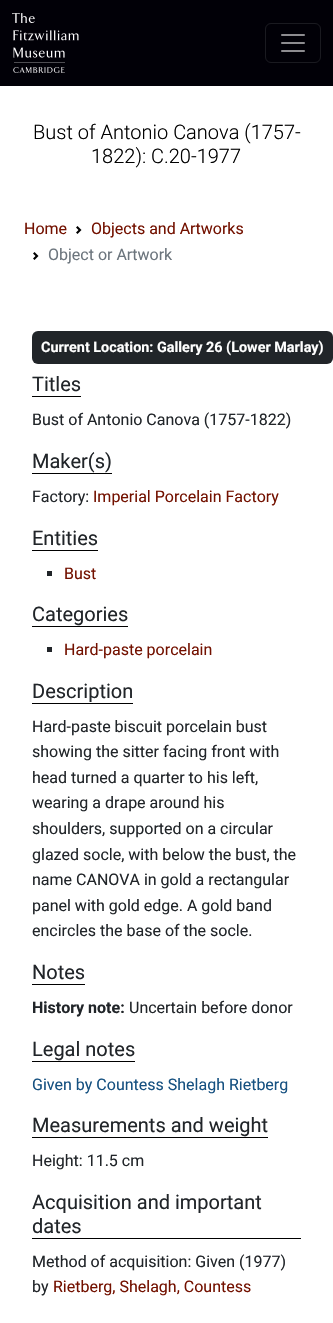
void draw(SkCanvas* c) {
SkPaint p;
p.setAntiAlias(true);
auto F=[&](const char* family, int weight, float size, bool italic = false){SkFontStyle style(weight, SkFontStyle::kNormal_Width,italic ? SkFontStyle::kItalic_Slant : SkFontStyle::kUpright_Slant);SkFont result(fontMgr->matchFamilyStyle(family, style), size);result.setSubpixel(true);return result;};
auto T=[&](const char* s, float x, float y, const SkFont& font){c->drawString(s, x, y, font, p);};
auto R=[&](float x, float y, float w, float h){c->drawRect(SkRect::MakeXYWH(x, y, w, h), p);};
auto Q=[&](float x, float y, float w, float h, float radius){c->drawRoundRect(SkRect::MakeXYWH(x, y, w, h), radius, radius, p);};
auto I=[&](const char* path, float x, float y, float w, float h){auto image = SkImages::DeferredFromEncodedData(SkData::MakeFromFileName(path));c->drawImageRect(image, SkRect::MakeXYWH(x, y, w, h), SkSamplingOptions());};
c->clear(0xffffffff);
p.setColor(0xff010007);
R(0,0,333,86);
I("1.png",12,13,67,60);
p.setStroke(true);
p.setStrokeWidth(1);
p.setColor(0xff1a1a20);
c->drawRoundRect(SkRect::MakeXYWH(265.5,23.5,55,39),5.5,5.5,p);
I("2.png",281,34,24,18);
auto f1 = F("Roboto",300,20);
p.setStroke(false);
p.setColor(0xff000000);
T("Bust of Antonio Canova (1757-",33,139,f1);
T("1822): C.20-1977",91,163,f1);
auto f2 = F("Roboto",400,16);
p.setColor(0xff731100);
T("Home",24,234,f2);
I("3.png",76,226,6,8);
T("Objects and Artworks",91,234,f2);
I("4.png",33,252,6,8);
p.setColor(0xff6c757d);
T("Object or Artwork",48,260,f2);
p.setColor(0xff212529);
Q(32,331,301,33,6);
auto f3 = F("Roboto",700,14.4);
p.setColor(0xffffffff);
T("Current Location: Gallery 26 (Lower Marlay)",41,352,f3);
p.setColor(0xff000000);
R(32,396,49,1);
auto f4 = F("Roboto",400,20);
p.setColor(0xff212529);
T("Titles",32,391,f4);
T("Bust of Antonio Canova (1757-1822)",32,425,f2);
p.setColor(0xff000000);
R(32,473,80,1);
p.setColor(0xff212529);
T("Maker(s)",32,468,f4);
T("Factory:",32,502,f2);
p.setColor(0xff731100);
T("Imperial Porcelain Factory",93,502,f2);
p.setColor(0xff000000);
R(32,550,66,1);
p.setColor(0xff212529);
T("Entities",32,545,f4);
R(47,571,5,5);
p.setColor(0xff731100);
T("Bust",64,579,f2);
p.setColor(0xff000000);
R(32,626,96,1);
p.setColor(0xff212529);
T("Categories",32,621,f4);
R(47,647,5,5);
p.setColor(0xff731100);
T("Hard-paste porcelain",64,655,f2);
p.setColor(0xff000000);
R(32,703,101,1);
p.setColor(0xff212529);
T("Description",32,698,f4);
T("Hard-paste biscuit porcelain bust",32,732,f2);
T("showing the sitter facing front with",32,757,f2);
T("head turned a quarter to his left,",32,783,f2);
T("wearing a drape around his",32,808,f2);
T("shoulders, supported on a circular",32,834,f2);
T("glazed socle, with below the bust, the",32,860,f2);
T("name CANOVA in gold a rectangular",32,885,f2);
T("panel with gold edge. A gold band",32,911,f2);
T("encircles the base of the socle.",32,936,f2);
p.setColor(0xff000000);
R(32,984,53,1);
p.setColor(0xff212529);
T("Notes",32,979,f4);
auto f5 = F("Roboto",700,16);
T("History note:",32,1013,f5);
T("Uncertain before donor",129,1013,f2);
p.setColor(0xff000000);
R(32,1061,103,1);
p.setColor(0xff212529);
T("Legal notes",32,1056,f4);
p.setColor(0xff165181);
T("Given by Countess Shelagh Rietberg",32,1090,f2);
p.setColor(0xff000000);
R(32,1137,236,1);
p.setColor(0xff212529);
T("Measurements and weight",32,1132,f4);
T("Height: 11.5 cm",32,1166,f2);
p.setColor(0xff000000);
R(32,1238,269,1);
p.setColor(0xff212529);
T("Acquisition and important",32,1209,f4);
T("dates",32,1233,f4);
T("Method of acquisition: Given (1977)",32,1267,f2);
T("by",32,1292,f2);
p.setColor(0xff731100);
T("Rietberg, Shelagh, Countess",53,1292,f2);
}
